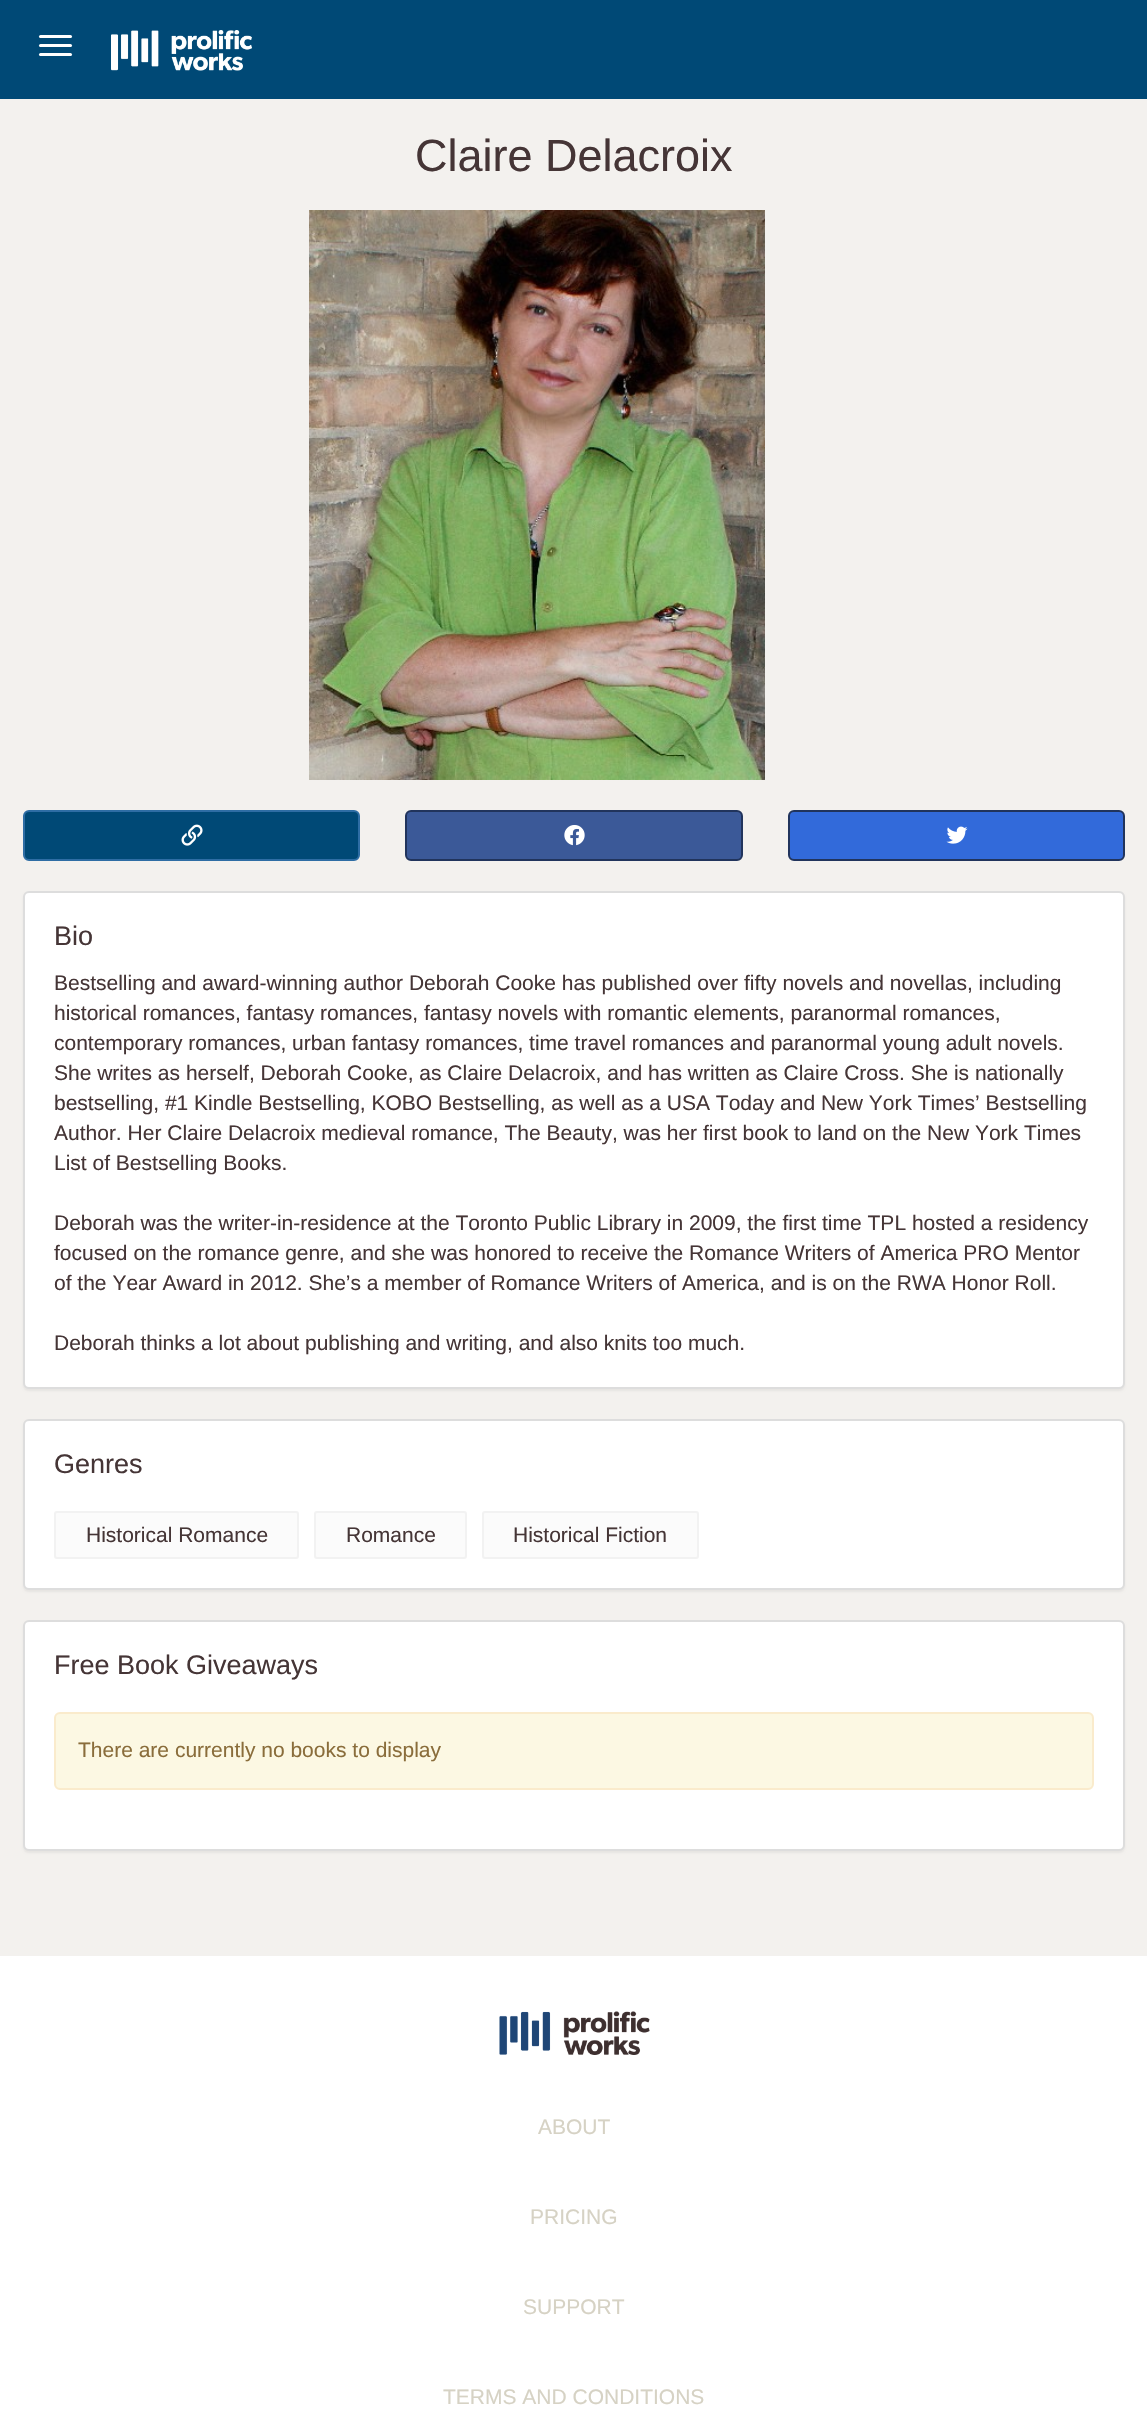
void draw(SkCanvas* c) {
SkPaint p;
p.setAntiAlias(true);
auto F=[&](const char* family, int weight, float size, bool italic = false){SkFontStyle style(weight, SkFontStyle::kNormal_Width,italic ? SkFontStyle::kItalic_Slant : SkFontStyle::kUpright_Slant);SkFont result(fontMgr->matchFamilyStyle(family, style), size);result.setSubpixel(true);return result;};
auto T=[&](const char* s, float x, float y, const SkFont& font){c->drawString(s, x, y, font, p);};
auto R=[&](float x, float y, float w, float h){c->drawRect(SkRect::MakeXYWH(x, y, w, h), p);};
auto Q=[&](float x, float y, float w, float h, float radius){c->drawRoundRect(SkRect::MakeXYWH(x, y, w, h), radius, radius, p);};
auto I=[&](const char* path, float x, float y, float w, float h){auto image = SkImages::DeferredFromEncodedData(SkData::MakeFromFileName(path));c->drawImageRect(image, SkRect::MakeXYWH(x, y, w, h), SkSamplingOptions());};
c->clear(0xfff3f1ee);
p.setColor(0xff004976);
R(0,0,1147,99);
p.setColor(0xffffffff);
Q(39,35,33,3,1.5);
Q(39,44,33,3,1.5);
Q(39,53,33,3,1.5);
I("1.png",111,30,141,41);
auto f1 = F("Liberation Sans",400,45);
p.setColor(0xff453536);
T("Claire Delacroix",415,171,f1);
I("2.png",309,210,456,570);
p.setColor(0xff004976);
c->drawRoundRect(SkRect::MakeXYWH(24,811,335,49),5,5,p);
p.setStroke(true);
p.setStrokeWidth(2);
p.setColor(0xff2e6da4);
c->drawRoundRect(SkRect::MakeXYWH(24,811,335,49),5,5,p);
I("3.png",181,824,22,22);
p.setStroke(false);
p.setColor(0xff3b5998);
c->drawRoundRect(SkRect::MakeXYWH(406,811,336,49),5,5,p);
p.setStroke(true);
p.setColor(0xff21345c);
c->drawRoundRect(SkRect::MakeXYWH(406,811,336,49),5,5,p);
I("4.png",564,825,21,21);
p.setStroke(false);
p.setColor(0xff326ada);
c->drawRoundRect(SkRect::MakeXYWH(789,811,335,49),5,5,p);
p.setStroke(true);
p.setColor(0xff21345c);
c->drawRoundRect(SkRect::MakeXYWH(789,811,335,49),5,5,p);
I("5.png",946,826,22,18);
p.setStroke(false);
p.setColor(0x0d000000);
p.setMaskFilter(SkMaskFilter::MakeBlur(kNormal_SkBlurStyle, 1));
c->drawRoundRect(SkRect::MakeXYWH(23,893,1102,498),6,6,p);
p.setMaskFilter(nullptr);
p.setColor(0xffffffff);
c->drawRoundRect(SkRect::MakeXYWH(24,892,1100,496),5,5,p);
p.setStroke(true);
p.setColor(0xffdddddd);
c->drawRoundRect(SkRect::MakeXYWH(24,892,1100,496),5,5,p);
auto f2 = F("Liberation Sans",400,27);
p.setStroke(false);
p.setColor(0xff453536);
T("Bio",54,945,f2);
auto f3 = F("Liberation Sans",400,21);
T("Bestselling and award-winning author Deborah Cooke has published over fifty novels and novellas, including",54,990,f3);
T("historical romances, fantasy romances, fantasy novels with romantic elements, paranormal romances,",54,1020,f3);
T("contemporary romances, urban fantasy romances, time travel romances and paranormal young adult novels.",54,1050,f3);
T("She writes as herself, Deborah Cooke, as Claire Delacroix, and has written as Claire Cross. She is nationally",54,1080,f3);
T("bestselling, #1 Kindle Bestselling, KOBO Bestselling, as well as a USA Today and New York Times’ Bestselling",54,1110,f3);
T("Author. Her Claire Delacroix medieval romance, The Beauty, was her first book to land on the New York Times",54,1140,f3);
T("List of Bestselling Books.",54,1170,f3);
T("Deborah was the writer-in-residence at the Toronto Public Library in 2009, the first time TPL hosted a residency",54,1230,f3);
T("focused on the romance genre, and she was honored to receive the Romance Writers of America PRO Mentor",54,1260,f3);
T("of the Year Award in 2012. She’s a member of Romance Writers of America, and is on the RWA Honor Roll.",54,1290,f3);
T("Deborah thinks a lot about publishing and writing, and also knits too much.",54,1350,f3);
p.setColor(0x0d000000);
p.setMaskFilter(SkMaskFilter::MakeBlur(kNormal_SkBlurStyle, 1));
c->drawRoundRect(SkRect::MakeXYWH(23,1421,1102,171),6,6,p);
p.setMaskFilter(nullptr);
p.setColor(0xffffffff);
c->drawRoundRect(SkRect::MakeXYWH(24,1420,1100,169),5,5,p);
p.setStroke(true);
p.setColor(0xffdddddd);
c->drawRoundRect(SkRect::MakeXYWH(24,1420,1100,169),5,5,p);
p.setStroke(false);
p.setColor(0xff453536);
T("Genres",54,1473,f2);
p.setColor(0xfffbfbfb);
c->drawRoundRect(SkRect::MakeXYWH(55,1512,243,46),2,2,p);
p.setStroke(true);
p.setColor(0xfff2f2f2);
c->drawRoundRect(SkRect::MakeXYWH(55,1512,243,46),2,2,p);
p.setStroke(false);
p.setColor(0xff453536);
T("Historical Romance",86,1542,f3);
p.setColor(0xfffbfbfb);
c->drawRoundRect(SkRect::MakeXYWH(315,1512,151,46),2,2,p);
p.setStroke(true);
p.setColor(0xfff2f2f2);
c->drawRoundRect(SkRect::MakeXYWH(315,1512,151,46),2,2,p);
p.setStroke(false);
p.setColor(0xff453536);
T("Romance",346,1542,f3);
p.setColor(0xfffbfbfb);
c->drawRoundRect(SkRect::MakeXYWH(483,1512,215,46),2,2,p);
p.setStroke(true);
p.setColor(0xfff2f2f2);
c->drawRoundRect(SkRect::MakeXYWH(483,1512,215,46),2,2,p);
p.setStroke(false);
p.setColor(0xff453536);
T("Historical Fiction",513,1542,f3);
p.setColor(0x0d000000);
p.setMaskFilter(SkMaskFilter::MakeBlur(kNormal_SkBlurStyle, 1));
c->drawRoundRect(SkRect::MakeXYWH(23,1622,1102,231),6,6,p);
p.setMaskFilter(nullptr);
p.setColor(0xffffffff);
c->drawRoundRect(SkRect::MakeXYWH(24,1621,1100,229),5,5,p);
p.setStroke(true);
p.setColor(0xffdddddd);
c->drawRoundRect(SkRect::MakeXYWH(24,1621,1100,229),5,5,p);
p.setStroke(false);
p.setColor(0xff453536);
T("Free Book Giveaways",54,1674,f2);
p.setColor(0xfffcf8e3);
c->drawRoundRect(SkRect::MakeXYWH(55,1713,1038,76),5,5,p);
p.setStroke(true);
p.setColor(0xfffaebcc);
c->drawRoundRect(SkRect::MakeXYWH(55,1713,1038,76),5,5,p);
p.setStroke(false);
p.setColor(0xff8a6d3b);
T("There are currently no books to display",78,1757,f3);
p.setColor(0xffffffff);
R(0,1956,1147,460);
I("6.png",499,2011,151,44);
p.setColor(0xffd6d2c4);
T("ABOUT",538,2134,f3);
T("PRICING",530,2224,f3);
T("SUPPORT",523,2314,f3);
T("TERMS AND CONDITIONS",443,2404,f3);
}
